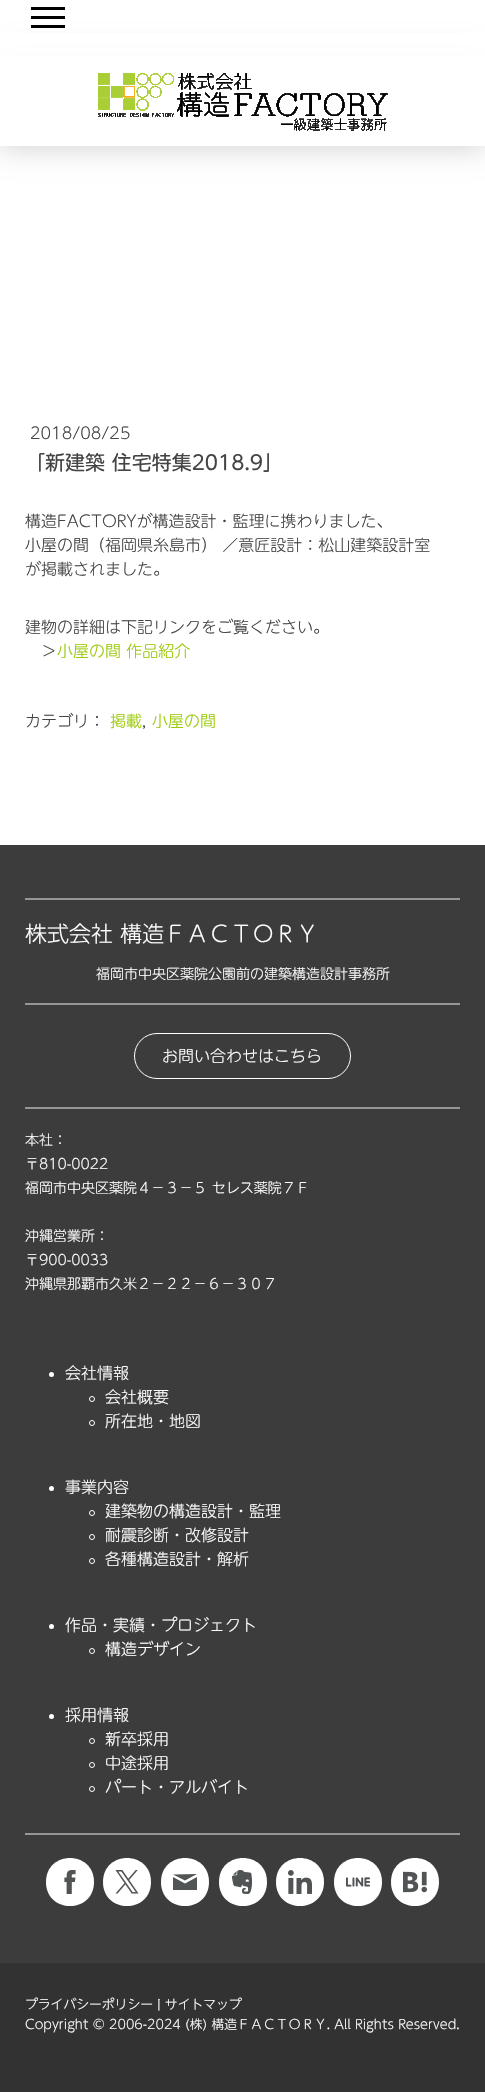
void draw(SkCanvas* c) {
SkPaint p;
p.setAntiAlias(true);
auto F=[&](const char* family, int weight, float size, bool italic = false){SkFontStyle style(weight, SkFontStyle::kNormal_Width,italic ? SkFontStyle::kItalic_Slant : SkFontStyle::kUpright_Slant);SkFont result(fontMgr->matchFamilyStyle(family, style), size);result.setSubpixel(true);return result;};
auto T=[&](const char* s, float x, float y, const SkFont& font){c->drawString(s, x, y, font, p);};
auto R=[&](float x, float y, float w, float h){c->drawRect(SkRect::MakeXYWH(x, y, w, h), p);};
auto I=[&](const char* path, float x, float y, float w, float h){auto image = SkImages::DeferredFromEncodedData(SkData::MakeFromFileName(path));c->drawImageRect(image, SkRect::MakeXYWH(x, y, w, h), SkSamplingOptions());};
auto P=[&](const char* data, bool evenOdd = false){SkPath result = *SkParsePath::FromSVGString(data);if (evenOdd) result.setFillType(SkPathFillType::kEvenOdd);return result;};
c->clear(0xffffffff);
c->save();
c->clipPath(P("M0 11h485v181h-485zm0 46h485v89h-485z",true),true);
p.setColor(0x33000000);
p.setMaskFilter(SkMaskFilter::MakeBlur(kNormal_SkBlurStyle, 15));
c->drawRect(SkRect::MakeXYWH(0,57,485,89),p);
p.setMaskFilter(nullptr);
c->restore();
p.setColor(0xe6ffffff);
R(0,33,485,24);
p.setColor(0xff000000);
R(31,16,34,3);
R(31,7,34,3);
R(31,25,34,3);
I("1.png",98,73,290,58);
auto f1 = F("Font",300,16);
p.setColor(0xff444444);
T("2018/08/25",30,439,f1);
auto f2 = F("Font",400,20);
T("「新建築 住宅特集2018.9」",25,470,f2);
T("構造FACTORYが構造設計・監理に携わりました、",25,527,f1);
T("小屋の間（福岡県糸島市） ／意匠設計：松山建築設計室",25,551,f1);
T("が掲載されました。",25,575,f1);
T("建物の詳細は下記リンクをご覧ください。",25,633,f1);
T("＞",41,657,f1);
p.setColor(0xff9ac906);
T("小屋の間 作品紹介",57,657,f1);
p.setColor(0xff444444);
T("カテゴリ：",25,727,f1);
p.setColor(0xff9ac906);
T("掲載",110,727,f1);
p.setColor(0xff444444);
T(",",142,727,f1);
p.setColor(0xff9ac906);
T("小屋の間",152,727,f1);
p.setColor(0xff3c3c3c);
R(0,845,485,1118);
p.setColor(0xff969696);
R(25,898,435,2);
auto f3 = F("Font",300,22);
p.setColor(0xffffffff);
T("株式会社 構造ＦＡＣＴＯＲＹ",25,942,f3);
auto f4 = F("Font",300,14);
T("福岡市中央区薬院公園前の建築構造設計事務所",96,979,f4);
p.setColor(0xff969696);
R(25,1003,435,2);
p.setStroke(true);
p.setStrokeWidth(1);
p.setColor(0xffffffff);
c->drawRoundRect(SkRect::MakeXYWH(134.5,1033.5,216,45),22.5,22.5,p);
p.setStroke(false);
T("お問い合わせはこちら",162,1062,f1);
p.setColor(0xff969696);
R(25,1107,435,2);
p.setColor(0xffffffff);
T("本社：",25,1145,f4);
T("〒810-0022",25,1169,f4);
T("福岡市中央区薬院４－３－５ セレス薬院７Ｆ",25,1193,f4);
T("沖縄営業所：",25,1241,f4);
T("〒900-0033",25,1265,f4);
T("沖縄県那覇市久米２－２２－６－３０７",25,1289,f4);
c->drawCircle(51.5,1374.5,2.5,p);
T("会社情報",65,1379,f1);
p.setStroke(true);
c->drawCircle(92,1399,2.5,p);
p.setStroke(false);
T("会社概要",105,1403,f1);
p.setStroke(true);
c->drawCircle(92,1423,2.5,p);
p.setStroke(false);
T("所在地・地図",105,1427,f1);
c->drawCircle(51.5,1488.5,2.5,p);
T("事業内容",65,1493,f1);
p.setStroke(true);
c->drawCircle(92,1513,2.5,p);
p.setStroke(false);
T("建築物の構造設計・監理",105,1517,f1);
p.setStroke(true);
c->drawCircle(92,1537,2.5,p);
p.setStroke(false);
T("耐震診断・改修設計",105,1541,f1);
p.setStroke(true);
c->drawCircle(92,1561,2.5,p);
p.setStroke(false);
T("各種構造設計・解析",105,1565,f1);
c->drawCircle(51.5,1626.5,2.5,p);
T("作品・実績・プロジェクト",65,1631,f1);
p.setStroke(true);
c->drawCircle(92,1651,2.5,p);
p.setStroke(false);
T("構造デザイン",105,1655,f1);
c->drawCircle(51.5,1716.5,2.5,p);
T("採用情報",65,1721,f1);
p.setStroke(true);
c->drawCircle(92,1741,2.5,p);
p.setStroke(false);
T("新卒採用",105,1745,f1);
p.setStroke(true);
c->drawCircle(92,1765,2.5,p);
p.setStroke(false);
T("中途採用",105,1769,f1);
p.setStroke(true);
c->drawCircle(92,1789,2.5,p);
p.setStroke(false);
T("パート・アルバイト",105,1793,f1);
p.setColor(0xff969696);
R(25,1833,435,2);
p.setColor(0xffffffff);
c->drawPath(P("M46 1882c0 32 48 32 48 0c0-32-48-32-48 0z"),p);
I("2.png",64,1870,12,24);
c->drawPath(P("M103 1882c0 32 48 32 48 0c0-32-48-32-48 0z"),p);
I("3.png",115,1870,24,24);
c->drawPath(P("M161 1882c0 32 48 32 48 0c0-32-48-32-48 0z"),p);
p.setColor(0xff515455);
c->drawPath(P("M197 1890h-24v-13l12 6.5l12-6.5zm0-16l-24 .5l12 6z"),p);
p.setColor(0xffffffff);
c->drawPath(P("M219 1882c0 32 48 32 48 0c0-32-48-32-48 0z"),p);
I("4.png",232,1870,21,24);
c->drawPath(P("M276 1882c0 32 48 32 48 0c0-32-48-32-48 0z"),p);
I("5.png",288,1870,24,24);
c->drawPath(P("M334 1882c0 32 48 32 48 0c0-32-48-32-48 0z"),p);
I("6.png",346,1877,24,10);
c->drawPath(P("M391 1882c0 32 48 32 48 0c0-32-48-32-48 0z"),p);
I("7.png",403,1871,24,22);
p.setColor(0xff323232);
R(0,1963,485,129);
auto f5 = F("Font",300,12.8);
p.setColor(0xffffffff);
T("プライバシーポリシー | サイトマップ",25,2009,f5);
T("Copyright © 2006-2024 (株) 構造ＦＡＣＴＯＲＹ. All Rights Reserved.",25,2029,f5);
}
